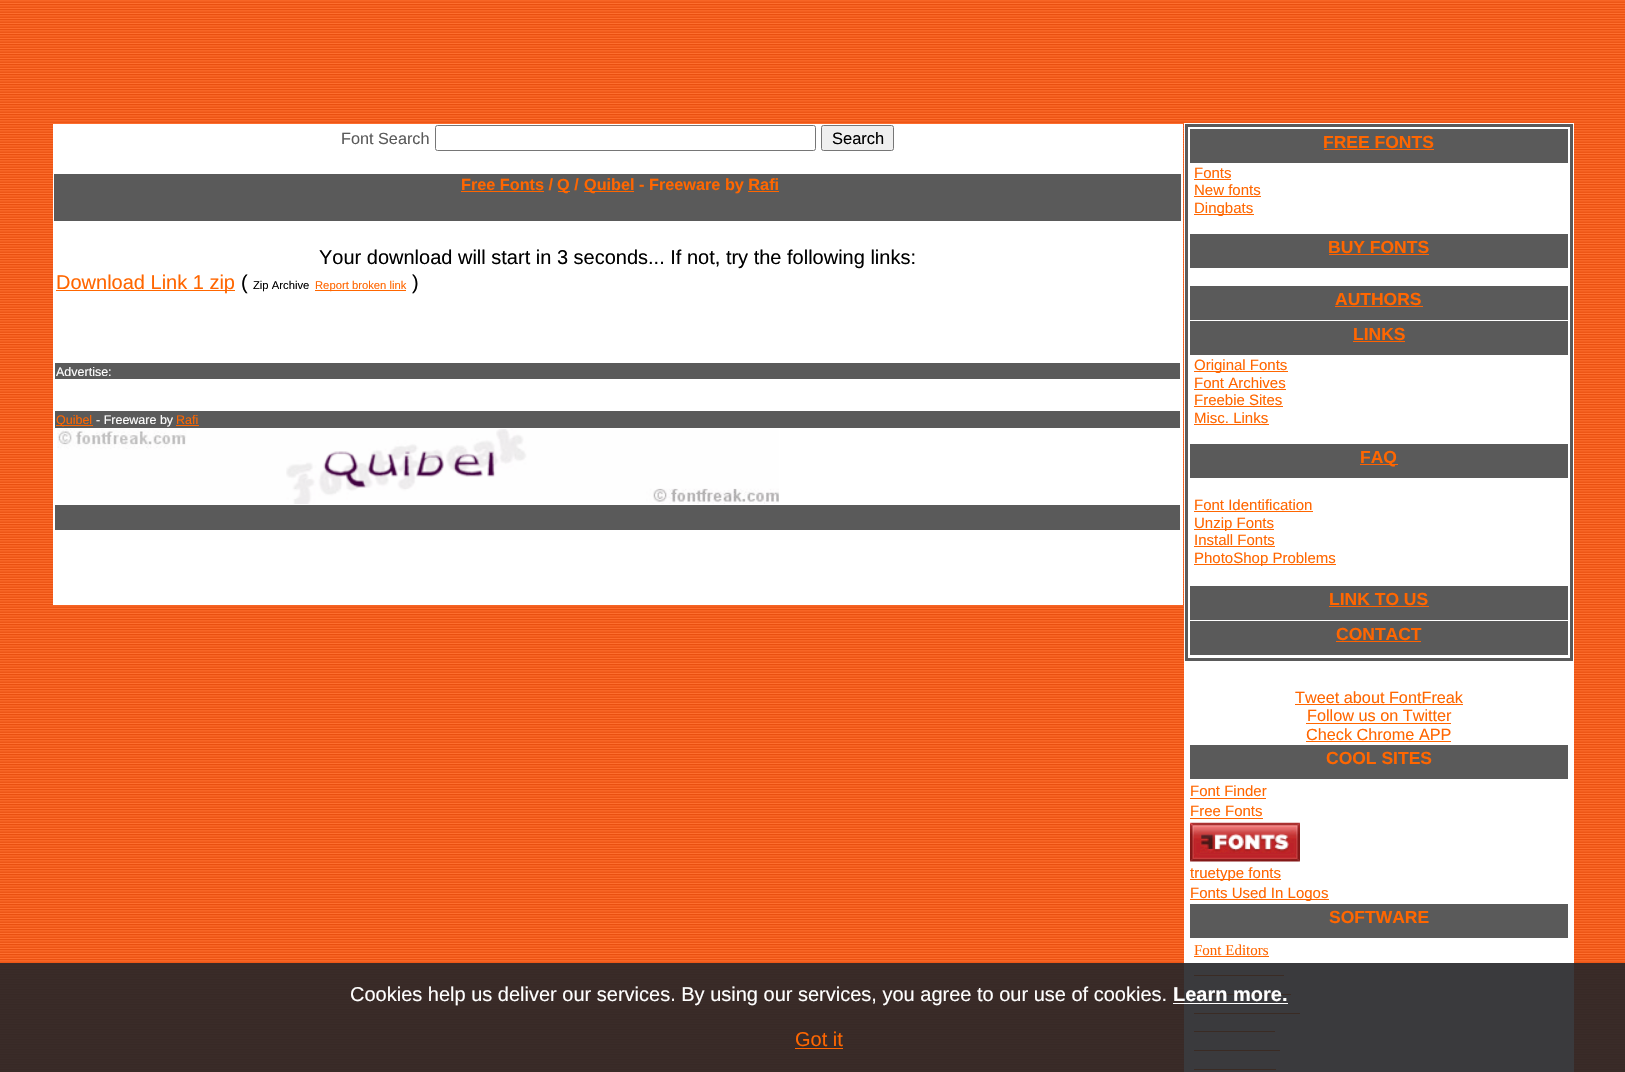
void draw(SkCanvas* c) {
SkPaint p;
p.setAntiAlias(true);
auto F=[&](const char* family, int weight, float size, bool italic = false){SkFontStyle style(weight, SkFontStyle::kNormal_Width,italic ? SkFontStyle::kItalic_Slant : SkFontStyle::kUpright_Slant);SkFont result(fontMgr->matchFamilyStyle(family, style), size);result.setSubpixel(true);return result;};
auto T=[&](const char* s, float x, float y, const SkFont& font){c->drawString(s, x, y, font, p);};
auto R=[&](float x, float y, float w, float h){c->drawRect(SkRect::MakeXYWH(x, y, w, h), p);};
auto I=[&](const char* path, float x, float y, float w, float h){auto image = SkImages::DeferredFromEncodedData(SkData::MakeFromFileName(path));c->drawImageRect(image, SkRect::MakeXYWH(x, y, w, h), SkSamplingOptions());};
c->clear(0xffffffff);
I("1.png",0,0,1625,1072);
p.setColor(0xffffffff);
R(53,124,1130,481);
auto f1 = F("Liberation Sans",400,16.25);
p.setColor(0xff5a5a5a);
T("Font Search",341,144,f1);
p.setStroke(true);
p.setStrokeWidth(1);
p.setColor(0xff767676);
c->drawRoundRect(SkRect::MakeXYWH(435.5,125.5,380,25),2,2,p);
p.setStroke(false);
p.setColor(0xffefefef);
c->drawRoundRect(SkRect::MakeXYWH(821.5,125.5,72,25),2,2,p);
p.setStroke(true);
p.setColor(0xff767676);
c->drawRoundRect(SkRect::MakeXYWH(821.5,125.5,72,25),2,2,p);
auto f2 = F("Liberation Sans",400,16.5);
p.setStroke(false);
p.setColor(0xff000000);
T("Search",832,144,f2);
p.setColor(0xff5a5a5a);
R(54,174,1127,47);
auto f3 = F("Liberation Sans",700,16.25);
p.setColor(0xffff6600);
T("Free Fonts /",461,190,f3);
R(461,191,83,1);
R(558,191,12,1);
T("Q /",557,190,f3);
R(584,191,50,1);
T("Quibel - Freeware by Rafi",584,190,f3);
R(748,191,31,1);
auto f4 = F("Liberation Sans",400,20);
p.setColor(0xff000000);
T("Your download will start in 3 seconds... If not, try the following links:",319,264,f4);
p.setColor(0xffff6600);
R(56,290,179,1);
T("Download Link 1 zip",56,289,f4);
p.setColor(0xff000000);
T("(",241,289,f4);
auto f5 = F("Liberation Sans",400,11.25);
T("Zip Archive",253,289,f5);
p.setColor(0xffff6600);
R(315,290,91,1);
T("Report broken link",315,289,f5);
p.setColor(0xff000000);
T(")",412,289,f4);
p.setColor(0xff5a5a5a);
R(55,363,1125,16);
auto f6 = F("Liberation Sans",400,12.5);
p.setColor(0xffffffff);
T("Advertise:",56,376,f6);
p.setColor(0xff5a5a5a);
R(55,411,1125,17);
p.setColor(0xffff6600);
R(56,425,37,1);
T("Quibel",56,424,f6);
p.setColor(0xffffffff);
T("- Freeware by",96,424,f6);
p.setColor(0xffff6600);
T("Rafi",176,424,f6);
R(176,425,23,1);
I("2.png",57,429,722,75);
p.setColor(0xff5a5a5a);
R(55,505,1125,25);
p.setColor(0xffffffff);
R(1184,123,390,949);
p.setStroke(true);
p.setStrokeWidth(3);
p.setColor(0xff5a5a5a);
c->drawRect(SkRect::MakeXYWH(1186.5,125.5,385,534),p);
p.setStroke(false);
R(1190,129,378,34);
auto f7 = F("Liberation Sans",700,17.5);
p.setColor(0xffff6600);
T("FREE FONTS",1323,148,f7);
p.setColor(0xffff6200);
R(1324,149,110,1);
auto f8 = F("Liberation Sans",400,15);
p.setColor(0xffff6600);
T("Fonts",1194,178,f8);
R(1194,179,37,1);
T("New fonts",1194,195,f8);
R(1194,196,67,1);
R(1194,214,60,1);
T("Dingbats",1194,213,f8);
p.setColor(0xff5a5a5a);
R(1190,234,378,34);
p.setColor(0xffff6600);
T("BUY FONTS",1328,253,f7);
p.setColor(0xffff6200);
R(1329,254,100,1);
p.setColor(0xff5a5a5a);
R(1190,286,378,34);
p.setColor(0xffff6600);
T("AUTHORS",1335,305,f7);
p.setColor(0xffff6200);
R(1335,306,88,1);
p.setColor(0xff5a5a5a);
R(1190,321,378,34);
p.setColor(0xffff6600);
T("LINKS",1353,340,f7);
p.setColor(0xffff6200);
R(1353,341,52,1);
p.setColor(0xffff6600);
R(1194,371,94,1);
T("Original Fonts",1194,370,f8);
T("Font Archives",1194,388,f8);
R(1194,389,92,1);
T("Freebie Sites",1194,405,f8);
R(1194,406,89,1);
T("Misc. Links",1194,423,f8);
R(1194,424,75,1);
p.setColor(0xff5a5a5a);
R(1190,444,378,34);
p.setColor(0xffff6200);
R(1360,464,38,1);
p.setColor(0xffff6600);
T("FAQ",1360,463,f7);
T("Font Identification",1194,510,f8);
R(1194,511,119,1);
R(1194,529,80,1);
T("Unzip Fonts",1194,528,f8);
T("Install Fonts",1194,545,f8);
R(1194,546,81,1);
R(1194,564,142,1);
T("PhotoShop Problems",1194,563,f8);
p.setColor(0xff5a5a5a);
R(1190,586,378,34);
p.setColor(0xffff6600);
T("LINK TO US",1329,605,f7);
p.setColor(0xffff6200);
R(1329,606,100,1);
p.setColor(0xff5a5a5a);
R(1190,621,378,34);
p.setColor(0xffff6600);
T("CONTACT",1336,640,f7);
p.setColor(0xffff6200);
R(1336,641,85,1);
p.setColor(0xffff6600);
T("Tweet about FontFreak",1295,703,f1);
R(1295,704,168,1);
T("Follow us on Twitter",1307,721,f1);
R(1306,723,145,1);
T("Check Chrome APP",1306,740,f1);
R(1306,741,145,1);
p.setColor(0xff5a5a5a);
R(1190,745,378,34);
p.setColor(0xffff6600);
T("COOL SITES",1326,764,f7);
T("Font Finder",1190,796,f8);
R(1190,798,76,1);
T("Free Fonts",1190,816,f8);
R(1190,818,73,1);
I("3.png",1190,822,110,40);
R(1190,879,91,1);
T("truetype fonts",1190,878,f8);
R(1190,899,139,1);
T("Fonts Used In Logos",1190,898,f8);
p.setColor(0xff5a5a5a);
R(1190,904,378,34);
p.setColor(0xffff6600);
T("SOFTWARE",1329,923,f7);
auto f9 = F("Liberation Serif",400,15);
T("Font Editors",1194,955,f9);
R(1194,956,75,1);
R(1194,975,90,1);
R(1194,994,97,1);
R(1194,1013,106,1);
R(1194,1031,81,1);
R(1194,1050,86,1);
R(1194,1069,82,1);
p.setColor(0xe6252528);
R(0,963,1625,109);
p.setColor(0xffffffff);
T("Cookies help us deliver our services. By using our services, you agree to our use of cookies.",350,1001,f4);
auto f10 = F("Liberation Sans",700,20);
T("Learn more.",1173,1001,f10);
R(1173,1003,115,1);
p.setColor(0xffff6600);
T("Got it",795,1046,f4);
R(795,1048,48,1);
}
